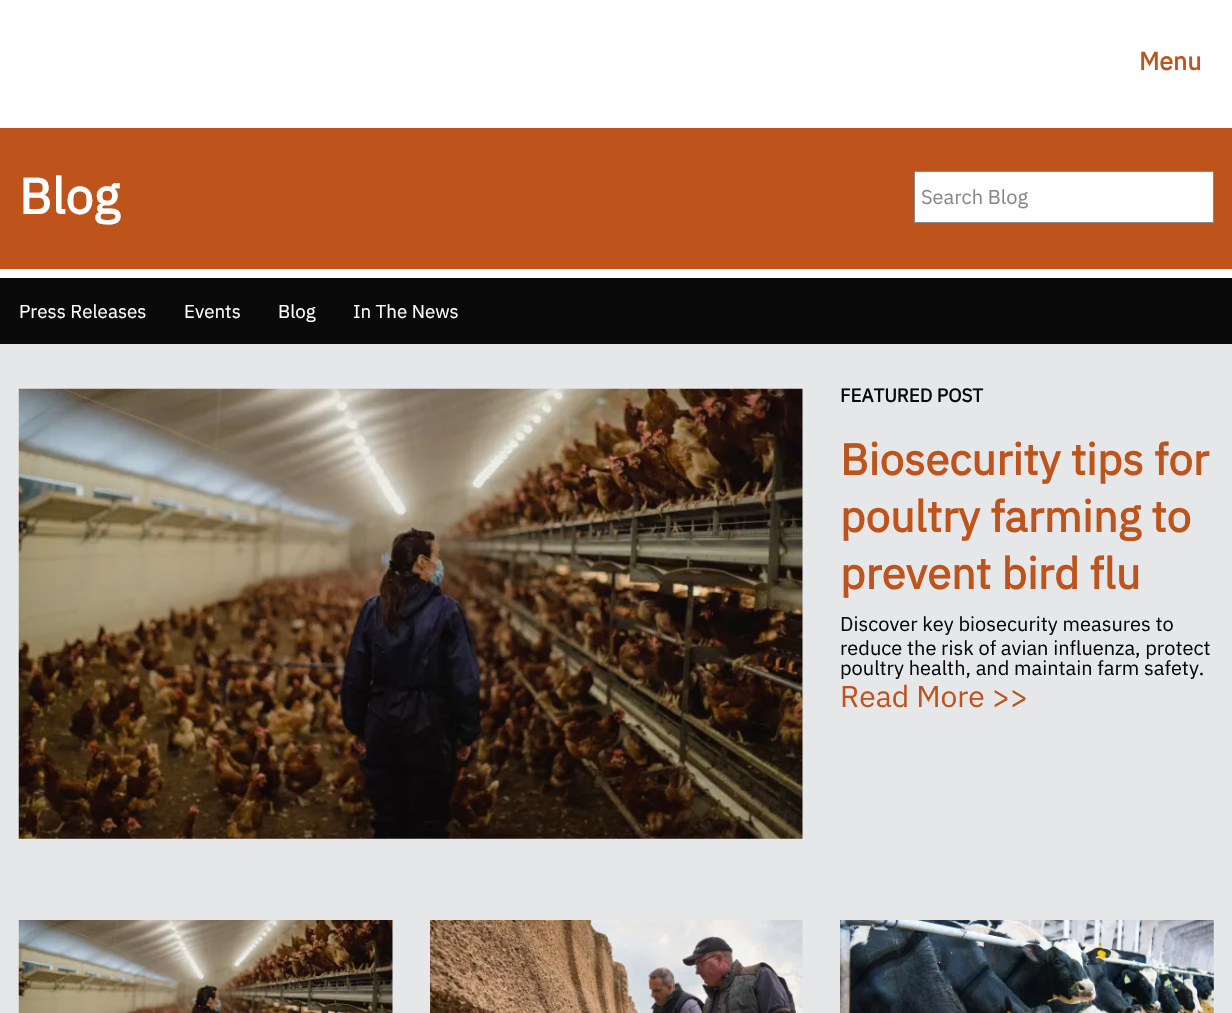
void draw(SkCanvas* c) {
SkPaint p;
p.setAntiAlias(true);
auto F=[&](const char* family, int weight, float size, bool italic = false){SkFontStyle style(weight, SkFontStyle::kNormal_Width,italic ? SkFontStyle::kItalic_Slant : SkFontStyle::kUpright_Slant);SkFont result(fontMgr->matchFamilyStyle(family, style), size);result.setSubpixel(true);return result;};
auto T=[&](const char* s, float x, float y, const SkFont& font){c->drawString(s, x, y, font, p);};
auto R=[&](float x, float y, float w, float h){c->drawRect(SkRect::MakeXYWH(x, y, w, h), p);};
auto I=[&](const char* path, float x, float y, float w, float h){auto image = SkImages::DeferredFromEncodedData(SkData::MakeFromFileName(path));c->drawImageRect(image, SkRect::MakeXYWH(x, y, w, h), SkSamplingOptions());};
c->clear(0xffffffff);
auto f1 = F("IBM Plex Sans",700,25);
p.setColor(0xffbe531c);
T("Menu",1139,70,f1);
R(0,128,1232,141);
auto f2 = F("IBM Plex Sans",700,50);
p.setColor(0xffffffff);
T("Blog",19,214,f2);
p.setColor(0xfffefefe);
c->drawRect(SkRect::MakeXYWH(914.5,171.5,299,51),p);
p.setStroke(true);
p.setStrokeWidth(1);
p.setColor(0xff888888);
c->drawRect(SkRect::MakeXYWH(914.5,171.5,299,51),p);
auto f3 = F("IBM Plex Sans",400,20);
p.setStroke(false);
T("Search Blog",921,204,f3);
p.setColor(0xff0a0a0a);
R(0,278,1232,66);
auto f4 = F("IBM Plex Sans",400,18.75);
p.setColor(0xffffffff);
T("Press Releases",19,318,f4);
T("Events",184,318,f4);
T("Blog",278,318,f4);
T("In The News",353,318,f4);
p.setColor(0xffe5e7e8);
R(0,344,1232,669);
I("1.png",18,388,785,451);
auto f5 = F("IBM Plex Sans",700,18.75);
p.setColor(0xff0a0a0a);
T("FEATURED POST",840,402,f5);
auto f6 = F("IBM Plex Sans",700,43.75);
p.setColor(0xffbe531c);
T("Biosecurity tips for",840,475,f6);
T("poultry farming to",840,532,f6);
T("prevent bird flu",840,589,f6);
p.setColor(0xff0a0a0a);
T("Discover key biosecurity measures to",840,631,f3);
T("reduce the risk of avian influenza, protect",840,655,f3);
T("poultry health, and maintain farm safety.",840,675,f3);
auto f7 = F("IBM Plex Sans",400,30);
p.setColor(0xffbe531c);
T("Read More >>",840,707,f7);
I("2.png",18,920,375,93);
I("3.png",430,920,373,93);
I("4.png",840,920,374,93);
}
